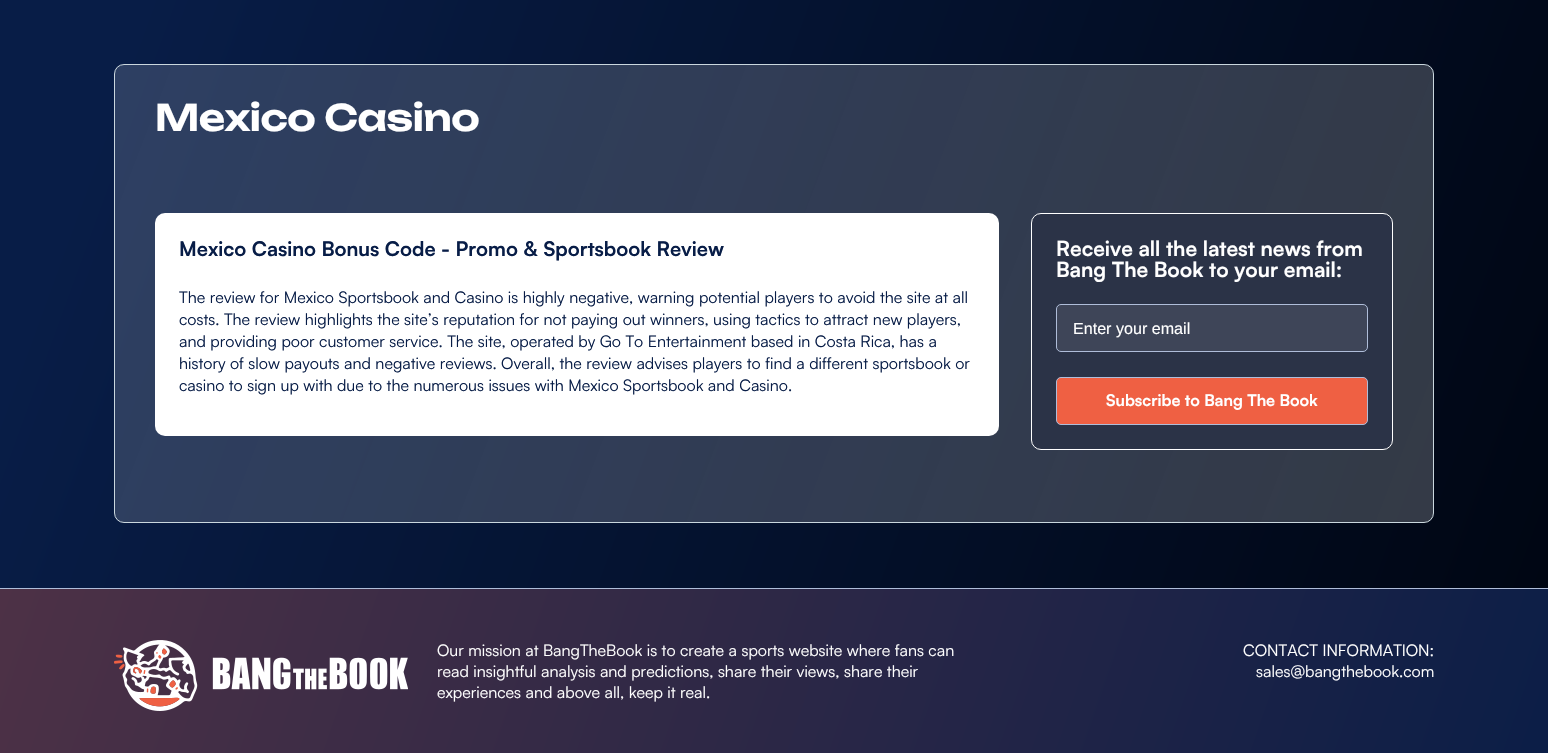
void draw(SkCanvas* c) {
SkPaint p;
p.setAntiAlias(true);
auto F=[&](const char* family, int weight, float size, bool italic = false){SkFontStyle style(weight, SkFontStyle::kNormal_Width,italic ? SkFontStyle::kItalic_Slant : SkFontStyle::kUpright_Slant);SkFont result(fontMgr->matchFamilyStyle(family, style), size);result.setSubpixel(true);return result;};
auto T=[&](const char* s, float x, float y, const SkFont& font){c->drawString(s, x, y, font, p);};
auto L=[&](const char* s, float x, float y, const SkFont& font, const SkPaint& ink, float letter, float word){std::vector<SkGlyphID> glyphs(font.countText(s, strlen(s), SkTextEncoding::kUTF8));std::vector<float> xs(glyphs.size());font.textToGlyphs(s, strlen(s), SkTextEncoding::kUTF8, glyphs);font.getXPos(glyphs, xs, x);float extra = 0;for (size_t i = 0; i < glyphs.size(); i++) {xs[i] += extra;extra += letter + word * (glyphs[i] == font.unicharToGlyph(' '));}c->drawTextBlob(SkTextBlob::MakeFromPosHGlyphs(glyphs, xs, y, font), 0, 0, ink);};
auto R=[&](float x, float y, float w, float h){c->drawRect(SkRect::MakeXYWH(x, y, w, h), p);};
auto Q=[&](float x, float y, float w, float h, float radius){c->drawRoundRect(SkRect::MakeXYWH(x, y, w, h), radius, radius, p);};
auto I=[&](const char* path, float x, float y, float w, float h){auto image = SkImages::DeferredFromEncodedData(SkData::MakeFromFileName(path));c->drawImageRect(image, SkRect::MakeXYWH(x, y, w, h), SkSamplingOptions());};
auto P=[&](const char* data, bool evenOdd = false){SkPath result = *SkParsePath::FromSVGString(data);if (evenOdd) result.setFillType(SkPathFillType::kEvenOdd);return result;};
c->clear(0xffffffff);
{
const SkColor colors[] = {0xff081d47,0xff000613};
const float stops[] = {.08,1};
const SkPoint ends[] = {{-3.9,11}, {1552,577}};
p.setShader(SkGradientShader::MakeLinear(ends, colors, stops, 2, SkTileMode::kClamp));
p.setAlpha(255);
}
R(0,0,1548,588);
c->save();
c->clipPath(P("M124 64h1300c5.5 0 10 4.5 10 10v439c0 5.5-4.5 10-10 10h-1300c-5.5 0-10-4.5-10-10v-439c0-5.5 4.5-10 10-10z"),true);
{
const SkColor colors[] = {0x26ffffff,0x33ffffff};
const float stops[] = {0,1};
const SkPoint ends[] = {{123,44}, {1425,543}};
p.setShader(SkGradientShader::MakeLinear(ends, colors, stops, 2, SkTileMode::kClamp));
p.setAlpha(255);
}
R(115,65,1318,457);
c->restore();
p.setStroke(true);
p.setStrokeWidth(1);
p.setShader(nullptr);
p.setColor(0xffcad7de);
c->drawRoundRect(SkRect::MakeXYWH(114.5,64.5,1319,458),9.5,9.5,p);
auto f1 = F("Unbounded",600,36.25);
p.setStroke(false);
p.setColor(0xffffffff);
L("Mexico Casino",155,131,f1,p,-.4,0);
Q(155,213,844,223,10);
auto f2 = F("Satoshi",700,20.1);
p.setColor(0xff081d47);
T("Mexico Casino Bonus Code - Promo & Sportsbook Review",179,256,f2);
auto f3 = F("Satoshi",400,16.1);
T("The review for Mexico Sportsbook and Casino is highly negative, warning potential players to avoid the site at all",179,303,f3);
T("costs. The review highlights the site’s reputation for not paying out winners, using tactics to attract new players,",179,325,f3);
T("and providing poor customer service. The site, operated by Go To Entertainment based in Costa Rica, has a",179,347,f3);
T("history of slow payouts and negative reviews. Overall, the review advises players to find a different sportsbook or",179,369,f3);
T("casino to sign up with due to the numerous issues with Mexico Sportsbook and Casino.",179,391,f3);
p.setColor(0xff2b3347);
c->drawRoundRect(SkRect::MakeXYWH(1031.5,213.5,361,236),9.5,9.5,p);
p.setStroke(true);
p.setColor(0xffffffff);
c->drawRoundRect(SkRect::MakeXYWH(1031.5,213.5,361,236),9.5,9.5,p);
auto f4 = F("Satoshi",700,20.9);
p.setStroke(false);
T("Receive all the latest news from",1056,256,f4);
T("Bang The Book to your email:",1056,277,f4);
p.setColor(0xff3e4558);
c->drawRoundRect(SkRect::MakeXYWH(1056.5,304.5,311,47),4.5,4.5,p);
p.setStroke(true);
p.setColor(0xffafbdd9);
c->drawRoundRect(SkRect::MakeXYWH(1056.5,304.5,311,47),4.5,4.5,p);
auto f5 = F("Liberation Sans",400,16.1);
p.setStroke(false);
p.setColor(0xffffffff);
T("Enter your email",1073,334,f5);
p.setColor(0xffef6043);
c->drawRoundRect(SkRect::MakeXYWH(1056.5,377.5,311,47),4.5,4.5,p);
p.setStroke(true);
p.setColor(0xffafbdd9);
c->drawRoundRect(SkRect::MakeXYWH(1056.5,377.5,311,47),4.5,4.5,p);
auto f6 = F("Satoshi",700,16.1);
p.setStroke(false);
p.setColor(0xffffffff);
T("Subscribe to Bang The Book",1106,406,f6);
p.setColor(0xffafbdd9);
R(0,588,1548,1);
{
const SkColor colors[] = {0xff643845,0xff4d3146,0xff081d47};
const float stops[] = {0,0,1};
const SkPoint ends[] = {{21,529}, {1527,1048}};
p.setShader(SkGradientShader::MakeLinear(ends, colors, stops, 3, SkTileMode::kClamp));
p.setAlpha(255);
}
R(0,589,1548,164);
I("1.png",114,640,294,71);
p.setShader(nullptr);
p.setColor(0xffffffff);
T("Our mission at BangTheBook is to create a sports website where fans can",437,656,f3);
T("read insightful analysis and predictions, share their views, share their",437,677,f3);
T("experiences and above all, keep it real.",437,698,f3);
T("CONTACT INFORMATION:",1243,656,f3);
T("sales@bangthebook.com",1256,677,f3);
}
